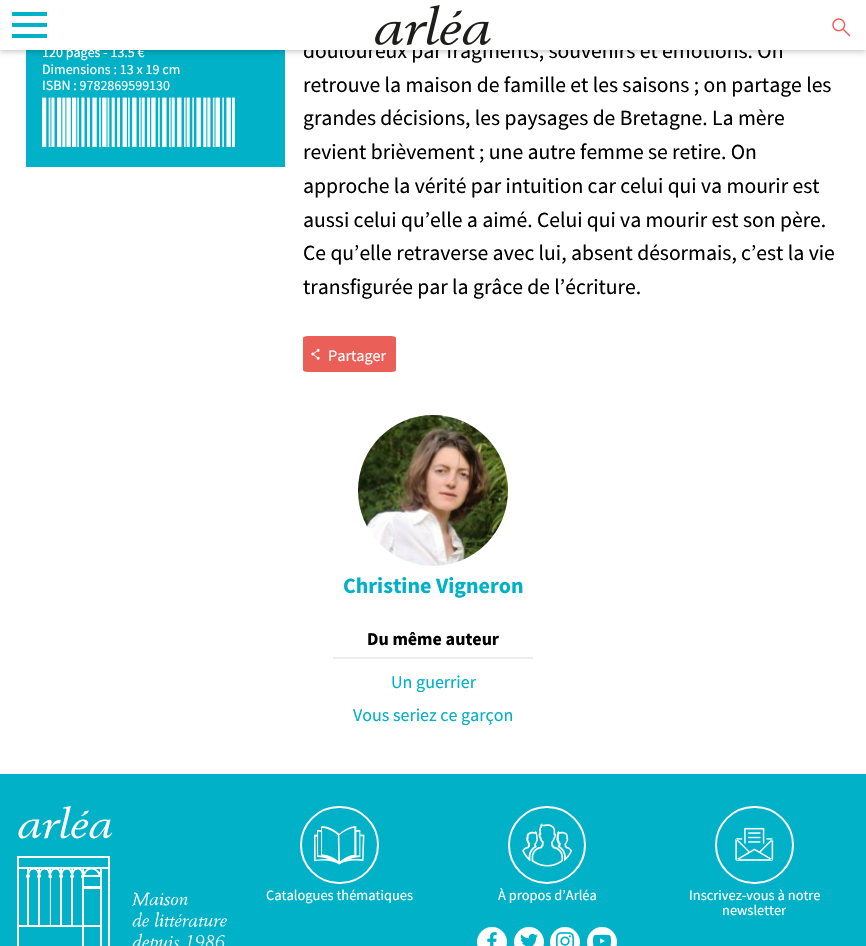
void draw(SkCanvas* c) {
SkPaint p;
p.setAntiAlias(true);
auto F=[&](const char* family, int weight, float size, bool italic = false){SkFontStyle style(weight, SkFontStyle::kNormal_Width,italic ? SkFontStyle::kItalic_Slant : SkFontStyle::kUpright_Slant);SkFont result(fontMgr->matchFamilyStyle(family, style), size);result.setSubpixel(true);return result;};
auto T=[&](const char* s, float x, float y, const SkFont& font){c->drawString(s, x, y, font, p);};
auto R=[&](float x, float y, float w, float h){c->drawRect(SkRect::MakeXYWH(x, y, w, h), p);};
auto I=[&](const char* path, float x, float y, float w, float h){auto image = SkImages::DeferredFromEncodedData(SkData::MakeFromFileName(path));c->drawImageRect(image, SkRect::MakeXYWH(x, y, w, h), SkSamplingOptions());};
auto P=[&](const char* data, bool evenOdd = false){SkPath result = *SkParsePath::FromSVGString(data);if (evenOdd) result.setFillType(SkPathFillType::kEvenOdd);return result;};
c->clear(0xffffffff);
p.setColor(0xff00b1c7);
R(26,50,259,117);
p.setColor(0x33000000);
p.setMaskFilter(SkMaskFilter::MakeBlur(kNormal_SkBlurStyle, 2.5));
c->drawRect(SkRect::MakeXYWH(0,2,866,50),p);
p.setMaskFilter(nullptr);
auto f1 = F("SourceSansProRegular",400,21.6);
p.setColor(0xff000000);
T("douloureux par fragments, souvenirs et émotions. On",303,58,f1);
p.setColor(0xffffffff);
R(0,0,866,50);
p.setColor(0xff00b1c7);
R(12,12,35,4);
R(12,23,35,4);
R(12,34,35,4);
I("1.png",375,5,116,40);
I("2.png",832,18,19,19);
auto f2 = F("SourceSansProRegular",400,14);
p.setColor(0xffffffff);
T("120 pages - 13.5 €",42,57,f2);
T("Dimensions : 13 x 19 cm",42,74,f2);
T("ISBN : 9782869599130",42,90,f2);
auto f3 = F("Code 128",400,56);
T("9782869599130",42,147,f3);
p.setColor(0xff000000);
T("retrouve la maison de famille et les saisons ; on partage les",303,92,f1);
T("grandes décisions, les paysages de Bretagne. La mère",303,125,f1);
T("revient brièvement ; une autre femme se retire. On",303,159,f1);
T("approche la vérité par intuition car celui qui va mourir est",303,193,f1);
T("aussi celui qu’elle a aimé. Celui qui va mourir est son père.",303,227,f1);
T("Ce qu’elle retraverse avec lui, absent désormais, c’est la vie",303,260,f1);
T("transfigurée par la grâce de l’écriture.",303,294,f1);
p.setColor(0xffea6059);
c->drawPath(P("M308 336h83c3 0 5 1 5 2v32c0 1-2 2-5 2h-83c-3 0-5-1-5-2v-32c0-1 2-2 5-2z"),p);
I("3.png",311,348,9,12);
auto f4 = F("SourceSansProRegular",400,16);
p.setColor(0xffffffff);
T("Partager",328,361,f4);
I("4.png",358,415,150,151);
auto f5 = F("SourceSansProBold",700,22);
p.setColor(0xff00b1c7);
T("Christine Vigneron",343,593,f5);
auto f6 = F("SourceSansProBold",700,18);
p.setColor(0xff000000);
T("Du même auteur",367,645,f6);
p.setColor(0xffededed);
R(333,657,200,2);
auto f7 = F("SourceSansProRegular",400,18);
p.setColor(0xff00b1c7);
T("Un guerrier",391,688,f7);
T("Vous seriez ce garçon",353,721,f7);
R(0,774,866,172);
I("5.png",17,806,210,140);
p.setStroke(true);
p.setStrokeWidth(2);
p.setColor(0xffffffff);
c->drawRoundRect(SkRect::MakeXYWH(301,807,77,76),38,38,p);
I("6.png",314,826,51,39);
auto f8 = F("SourceSansProRegular",400,14.4);
p.setStroke(false);
T("Catalogues thématiques",266,900,f8);
p.setStroke(true);
c->drawCircle(547,845,38,p);
I("7.png",522,823,50,44);
p.setStroke(false);
T("À propos d’Arléa",498,900,f8);
c->drawCircle(492,942,15,p);
I("8.png",487,932,10,14);
c->drawCircle(529,942,15,p);
I("9.png",520,933,18,13);
c->drawCircle(565,942,15,p);
I("10.png",556,932,18,14);
c->drawCircle(602,942,15,p);
I("11.png",593,934,18,12);
p.setStroke(true);
c->drawRoundRect(SkRect::MakeXYWH(716,807,77,76),38,38,p);
I("12.png",735,827,39,34);
p.setStroke(false);
T("Inscrivez-vous à notre",689,900,f8);
T("newsletter",722,915,f8);
}
